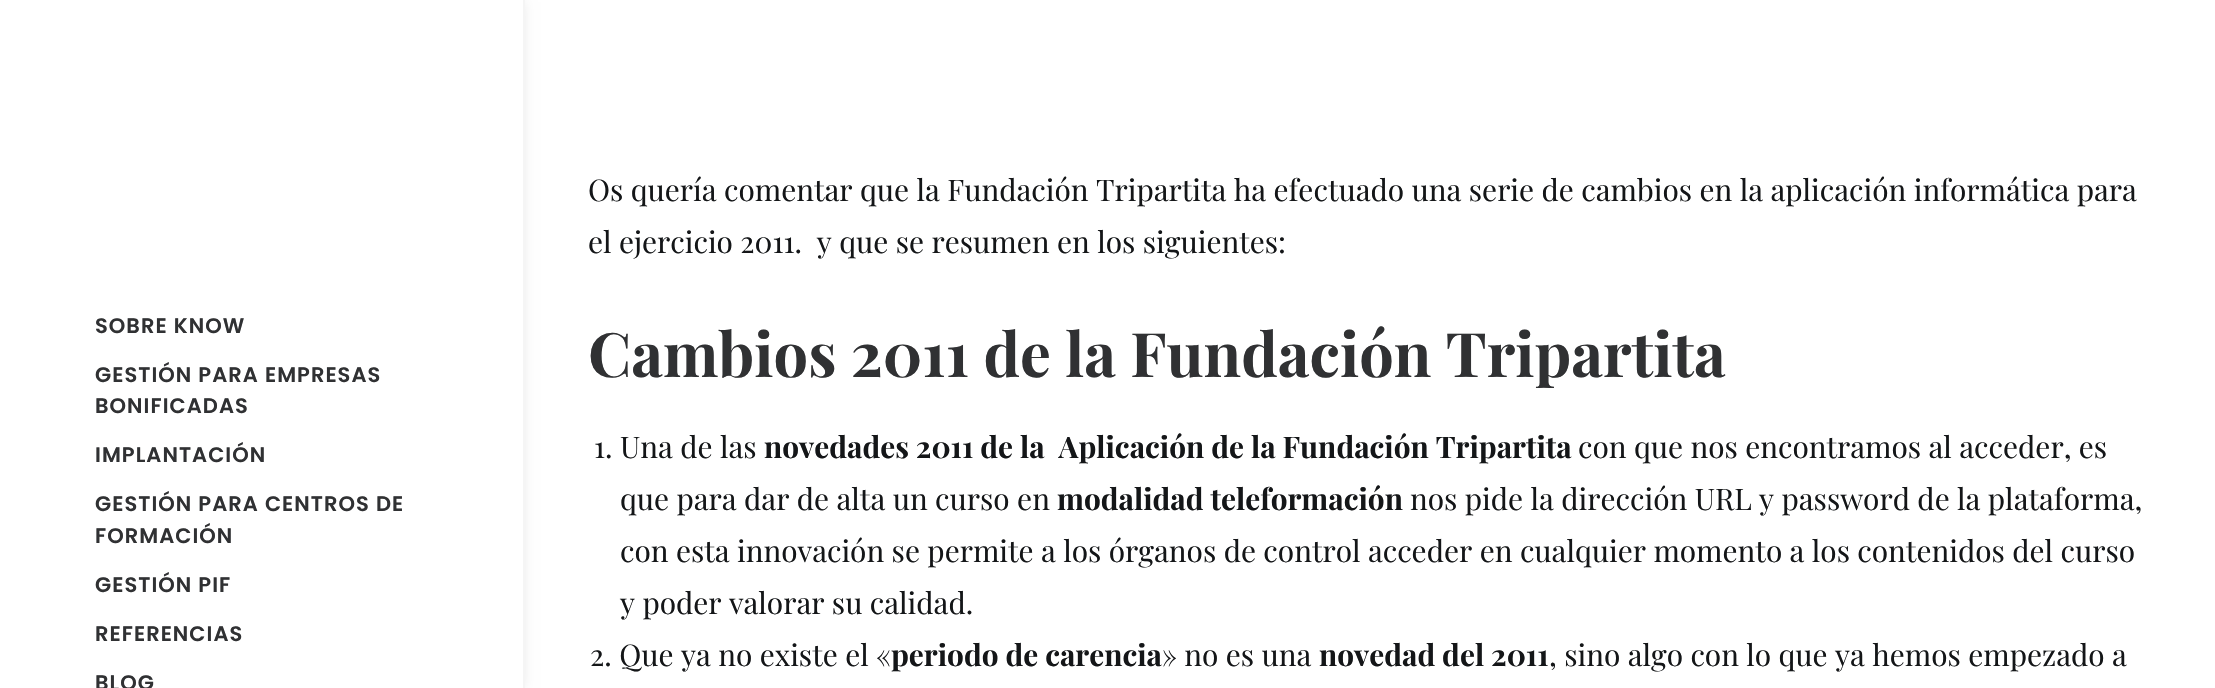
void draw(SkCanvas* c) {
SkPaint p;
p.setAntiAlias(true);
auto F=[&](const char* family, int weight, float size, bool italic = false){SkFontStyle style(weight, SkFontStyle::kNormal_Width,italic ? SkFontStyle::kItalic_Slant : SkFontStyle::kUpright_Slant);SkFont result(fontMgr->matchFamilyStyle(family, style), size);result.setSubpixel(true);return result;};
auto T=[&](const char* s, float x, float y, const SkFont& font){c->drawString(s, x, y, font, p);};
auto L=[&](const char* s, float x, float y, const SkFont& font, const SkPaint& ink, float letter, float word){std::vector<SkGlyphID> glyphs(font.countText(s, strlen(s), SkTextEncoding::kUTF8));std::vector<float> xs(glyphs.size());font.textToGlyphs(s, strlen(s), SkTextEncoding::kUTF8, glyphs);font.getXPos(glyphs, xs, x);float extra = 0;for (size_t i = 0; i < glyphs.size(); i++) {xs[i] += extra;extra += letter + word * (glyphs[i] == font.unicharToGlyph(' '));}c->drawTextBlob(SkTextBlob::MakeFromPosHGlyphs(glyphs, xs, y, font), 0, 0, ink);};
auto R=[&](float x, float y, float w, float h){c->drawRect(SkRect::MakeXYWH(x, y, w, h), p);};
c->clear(0xffffffff);
p.setColor(0x1a000000);
p.setMaskFilter(SkMaskFilter::MakeBlur(kNormal_SkBlurStyle, 6));
c->drawRect(SkRect::MakeXYWH(2,2,521,686),p);
p.setMaskFilter(nullptr);
p.setColor(0xffffffff);
R(0,0,523,688);
p.setColor(0xfff5f5f5);
R(523,0,2,688);
auto f1 = F("Poppins",600,21);
p.setColor(0xff303133);
L("SOBRE KNOW",95,333,f1,p,1.05,0);
L("GESTIÓN PARA EMPRESAS",95,382,f1,p,1.05,0);
L("BONIFICADAS",95,413,f1,p,1.05,0);
L("IMPLANTACIÓN",95,462,f1,p,1.05,0);
L("GESTIÓN PARA CENTROS DE",95,511,f1,p,1.05,0);
L("FORMACIÓN",95,543,f1,p,1.05,0);
L("GESTIÓN PIF",95,592,f1,p,1.05,0);
L("REFERENCIAS",95,641,f1,p,1.05,0);
L("BLOG",95,690,f1,p,1.05,0);
auto f2 = F("Playfair Display",400,29.75);
p.setColor(0xff141618);
T("Os quería comentar que la Fundación Tripartita ha efectuado una serie de cambios en la aplicación informática para",588,201,f2);
T("el ejercicio 2011.  y que se resumen en los siguientes:",588,253,f2);
auto f3 = F("Playfair Display",700,61.25);
p.setColor(0xff303133);
T("Cambios 2011 de la Fundación Tripartita",588,377,f3);
p.setColor(0xff141618);
T("1. Una de las",594,458,f2);
auto f4 = F("Playfair Display",700,29.75);
T("novedades 2011 de la  Aplicación de la Fundación Tripartita",764,458,f4);
T("con que nos encontramos al acceder, es",1578,458,f2);
T("que para dar de alta un curso en",620,510,f2);
T("modalidad teleformación",1057,510,f4);
T("nos pide la dirección URL y password de la plataforma,",1410,510,f2);
T("con esta innovación se permite a los órganos de control acceder en cualquier momento a los contenidos del curso",620,562,f2);
T("y poder valorar su calidad.",620,614,f2);
T("2. Que ya no existe el «",590,666,f2);
T("periodo de carencia",891,666,f4);
T("» no es una",1162,666,f2);
T("novedad del 2011",1319,666,f4);
T(", sino algo con lo que ya hemos empezado a",1549,666,f2);
}
